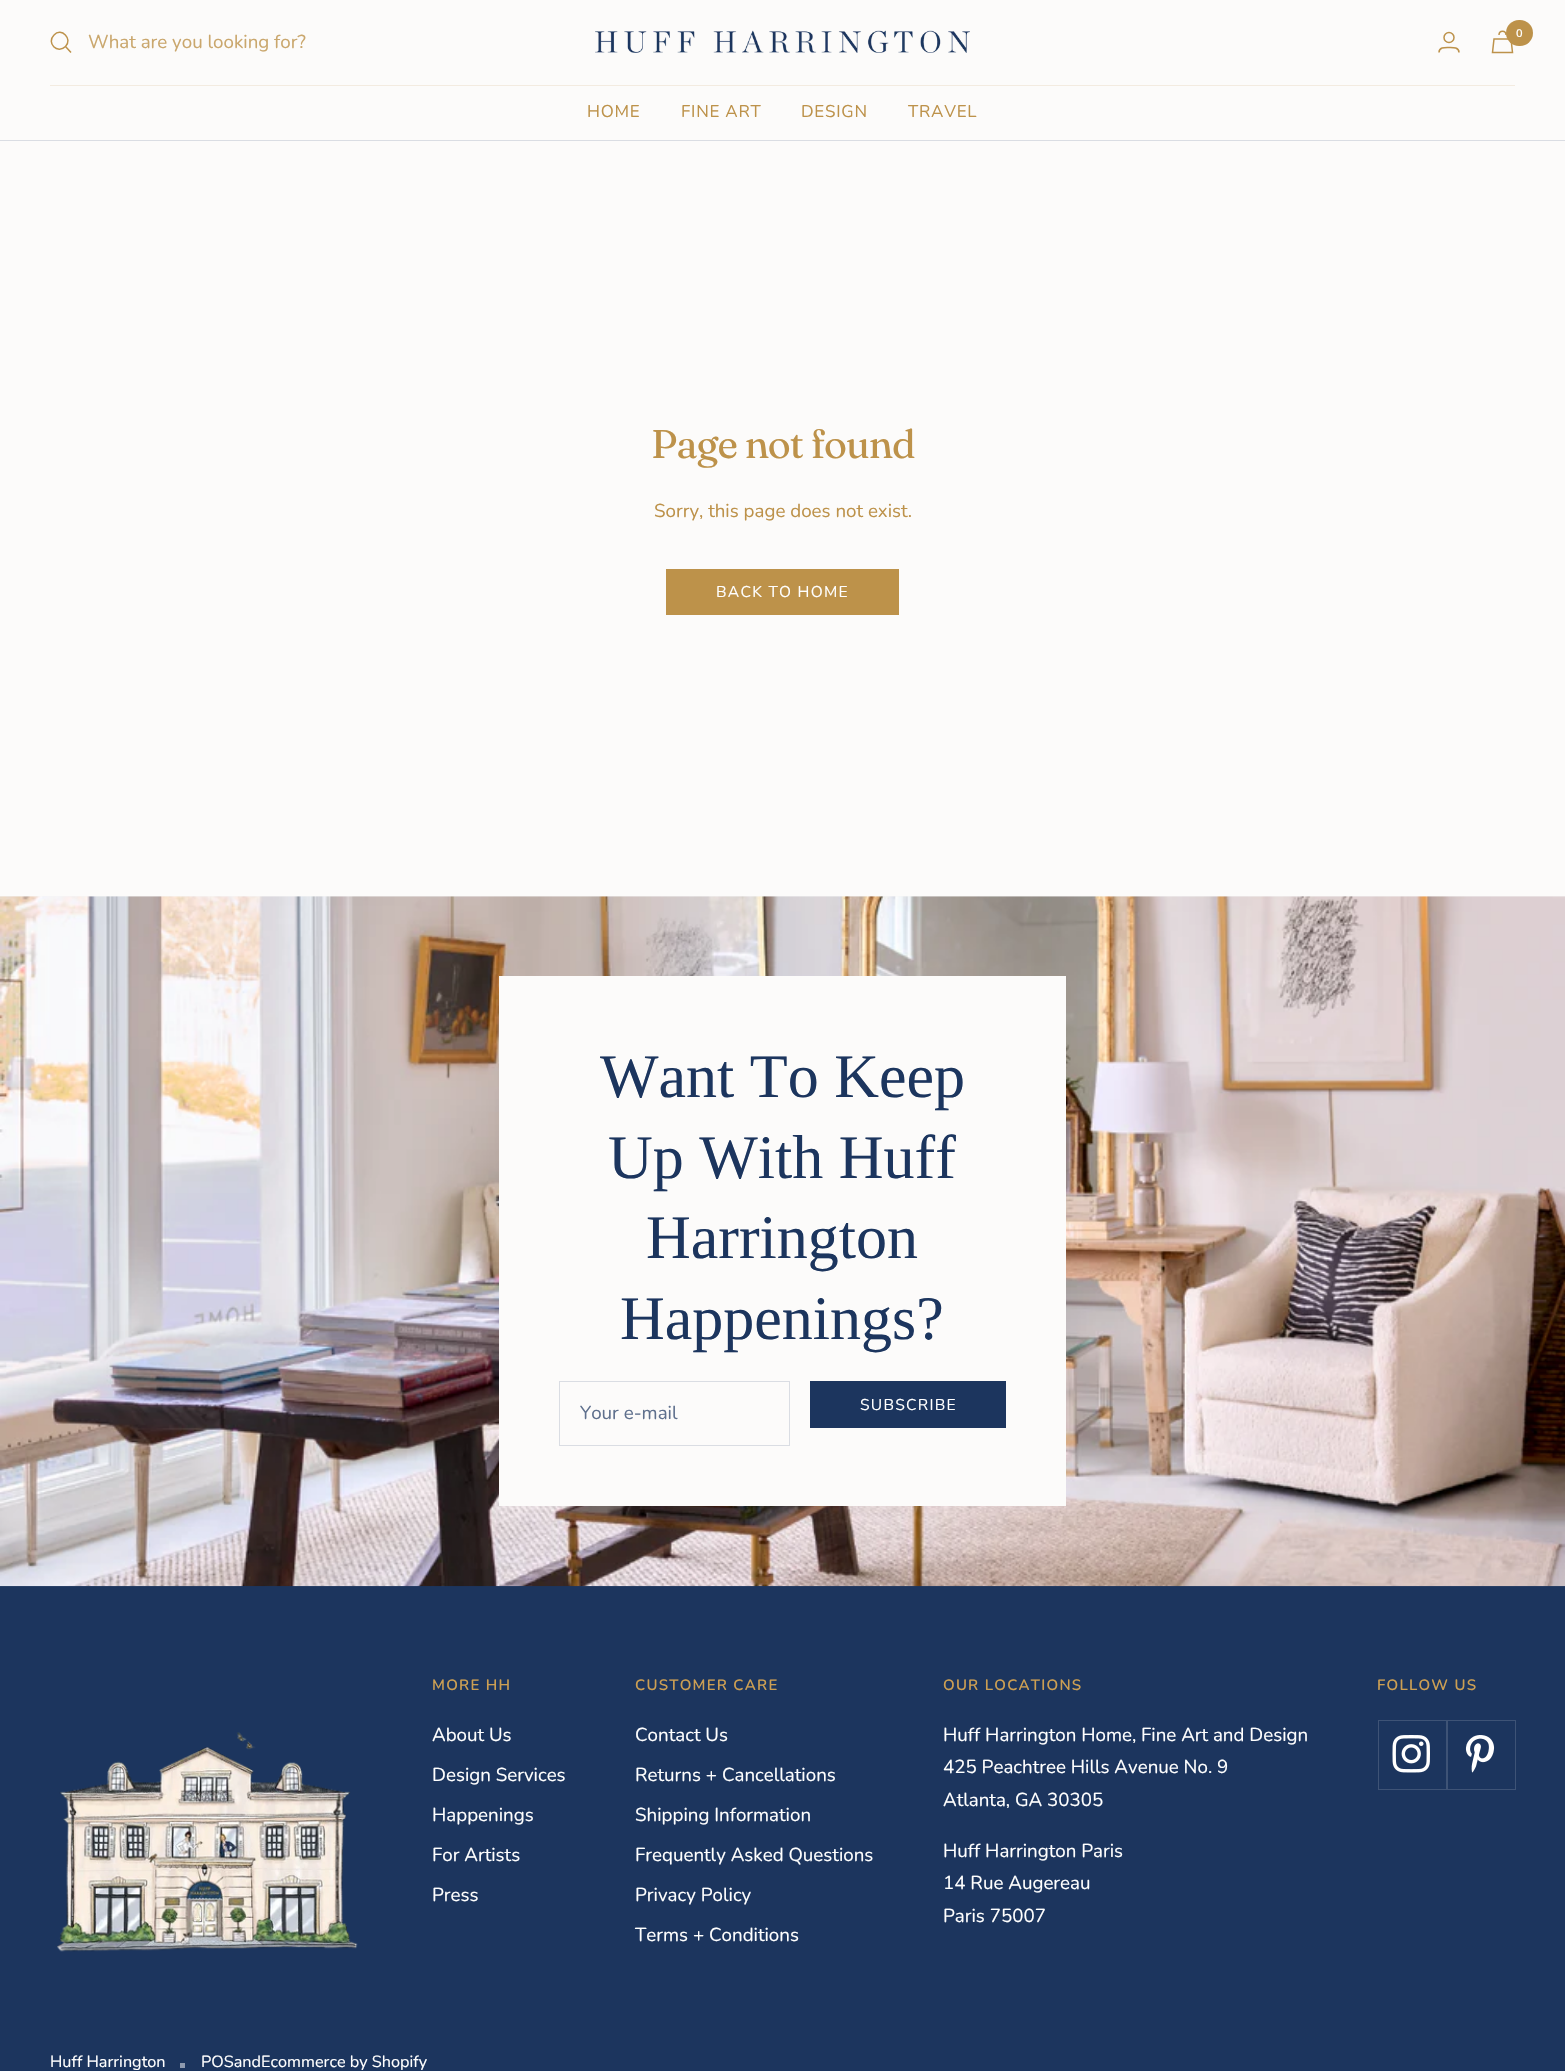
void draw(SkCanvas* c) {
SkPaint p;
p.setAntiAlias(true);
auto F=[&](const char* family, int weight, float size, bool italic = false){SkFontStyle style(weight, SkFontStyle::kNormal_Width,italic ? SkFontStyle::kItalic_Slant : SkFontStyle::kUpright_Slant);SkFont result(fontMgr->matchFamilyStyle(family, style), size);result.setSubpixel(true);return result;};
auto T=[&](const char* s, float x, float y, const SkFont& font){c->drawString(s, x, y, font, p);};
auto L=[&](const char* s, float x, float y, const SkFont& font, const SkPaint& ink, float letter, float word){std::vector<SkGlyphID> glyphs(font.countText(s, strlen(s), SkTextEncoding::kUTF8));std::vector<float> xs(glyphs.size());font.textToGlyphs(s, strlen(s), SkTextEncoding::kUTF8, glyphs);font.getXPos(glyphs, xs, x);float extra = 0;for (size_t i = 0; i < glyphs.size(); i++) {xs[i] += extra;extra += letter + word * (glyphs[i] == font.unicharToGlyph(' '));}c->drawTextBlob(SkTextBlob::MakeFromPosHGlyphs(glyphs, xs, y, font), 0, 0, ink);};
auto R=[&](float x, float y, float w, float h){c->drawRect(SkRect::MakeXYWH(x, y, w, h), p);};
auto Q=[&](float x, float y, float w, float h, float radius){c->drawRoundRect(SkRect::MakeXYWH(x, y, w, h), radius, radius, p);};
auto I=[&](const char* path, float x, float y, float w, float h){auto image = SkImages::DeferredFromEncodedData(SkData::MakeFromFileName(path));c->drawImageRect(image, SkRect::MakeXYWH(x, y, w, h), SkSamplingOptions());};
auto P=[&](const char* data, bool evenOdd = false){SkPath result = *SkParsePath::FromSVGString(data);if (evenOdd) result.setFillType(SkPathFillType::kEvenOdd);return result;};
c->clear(0xfffcfbfa);
p.setColor(0xffdadde3);
R(0,140,1565,1);
p.setStroke(true);
p.setStrokeWidth(1.5);
p.setColor(0xffbd924a);
c->drawPath(P("M65.5 46.5c7.5-7.5-4-19.5-11.5-11.5c-8 8 3.5 19.5 11.5 11.5zm0 0l5.5 6"),p);
auto f1 = F("Nunito",400,18.75);
p.setStroke(false);
p.setColor(0xffcaa76d);
T("What are you looking for?",88,48,f1);
I("1.png",595,30,375,23);
p.setStroke(true);
p.setColor(0xffbd924a);
c->drawCircle(1449,37.5,5,p);
c->drawPath(P("M1439 52.5c0-5.5 6-5 10-5c3.5 0 10-.5 10 5"),p);
c->drawPath(P("M1494 39h17l1.5 13.5h-20zm12-4c0-5-7-5-7 0"),p);
p.setStroke(false);
Q(1506,20,27,26,13);
auto f2 = F("Nunito",600,11);
p.setColor(0xffffffff);
T("0",1516,37,f2);
p.setColor(0xfff3ebe0);
R(50,85,1465,1);
auto f3 = F("Nunito",400,17);
p.setColor(0xffbd924a);
L("HOME",587,117,f3,p,.75,0);
L("FINE ART",681,117,f3,p,.75,0);
L("DESIGN",801,117,f3,p,.75,0);
L("TRAVEL",908,117,f3,p,.75,0);
auto f4 = F("Fraunces",400,40);
L("Page not found",651,458,f4,p,-1,0);
T("Sorry, this page does not exist.",654,517,f1);
R(666,569,233,46);
auto f5 = F("Nunito",400,15.6);
p.setColor(0xffffffff);
L("BACK TO HOME",716,597,f5,p,1.25,0);
p.setColor(0xfff5f5f5);
R(0,896,1565,1);
p.setColor(0xff1c355e);
R(0,1586,1565,485);
I("2.png",0,896,1565,691);
p.setColor(0xfffcfbfa);
R(499,976,567,530);
auto f6 = F("Liberation Serif",400,62);
p.setColor(0xff1c355e);
T("Want To Keep",600,1097,f6);
T("Up With Huff",608,1178,f6);
T("Harrington",646,1258,f6);
T("Happenings?",620,1339,f6);
p.setStroke(true);
p.setStrokeWidth(1);
p.setColor(0xffdadde3);
c->drawRect(SkRect::MakeXYWH(559.5,1381.5,230,64),p);
p.setStroke(false);
p.setColor(0xff5f708d);
T("Your e-mail",580,1419,f1);
p.setColor(0xff1c355e);
R(810,1381,196,47);
p.setColor(0xffffffff);
L("SUBSCRIBE",860,1410,f5,p,1.25,0);
auto f7 = F("Nunito",600,15);
p.setColor(0xffcc9f53);
L("MORE HH",432,1690,f7,p,1.25,0);
p.setColor(0xffffffff);
T("About Us",432,1741,f1);
T("Design Services",432,1781,f1);
T("Happenings",432,1821,f1);
T("For Artists",432,1861,f1);
T("Press",432,1901,f1);
p.setColor(0xffcc9f53);
L("CUSTOMER CARE",635,1690,f7,p,1.25,0);
p.setColor(0xffffffff);
T("Contact Us",635,1741,f1);
T("Returns + Cancellations",635,1781,f1);
T("Shipping Information",635,1821,f1);
T("Frequently Asked Questions",635,1861,f1);
T("Privacy Policy",635,1901,f1);
T("Terms + Conditions",635,1941,f1);
p.setColor(0xffcc9f53);
L("OUR LOCATIONS",943,1690,f7,p,1.25,0);
p.setColor(0xffffffff);
T("Huff Harrington Home, Fine Art and Design",943,1741,f1);
T("425 Peachtree Hills Avenue No. 9",943,1773,f1);
T("Atlanta, GA 30305",943,1806,f1);
T("Huff Harrington Paris",943,1857,f1);
T("14 Rue Augereau",943,1889,f1);
T("Paris 75007",943,1922,f1);
p.setColor(0xffcc9f53);
L("FOLLOW US",1377,1690,f7,p,1.25,0);
p.setColor(0xff3e5376);
c->drawPath(P("M1379 1789v1h69v-69h-2v68z"),p);
R(1378,1789,1,1);
c->drawPath(P("M1379 1789h69v-69h-2v69z"),p);
R(1378,1720,137,1);
R(1378,1720,1,69);
I("3.png",1392,1735,38,38);
c->drawPath(P("M1448 1789v1h68v-69h-1v68z"),p);
c->drawPath(P("M1448 1789h68v-69h-1v69z"),p);
I("4.png",1465,1735,30,38);
I("5.png",57,1732,301,220);
auto f8 = F("Nunito",400,16.25);
p.setColor(0xffffffff);
T("Huff Harrington",50,2067,f8);
p.setColor(0xff8e9aaf);
R(180,2063,5,5);
p.setColor(0xffffffff);
T("POSandEcommerce by Shopify",201,2067,f8);
}
